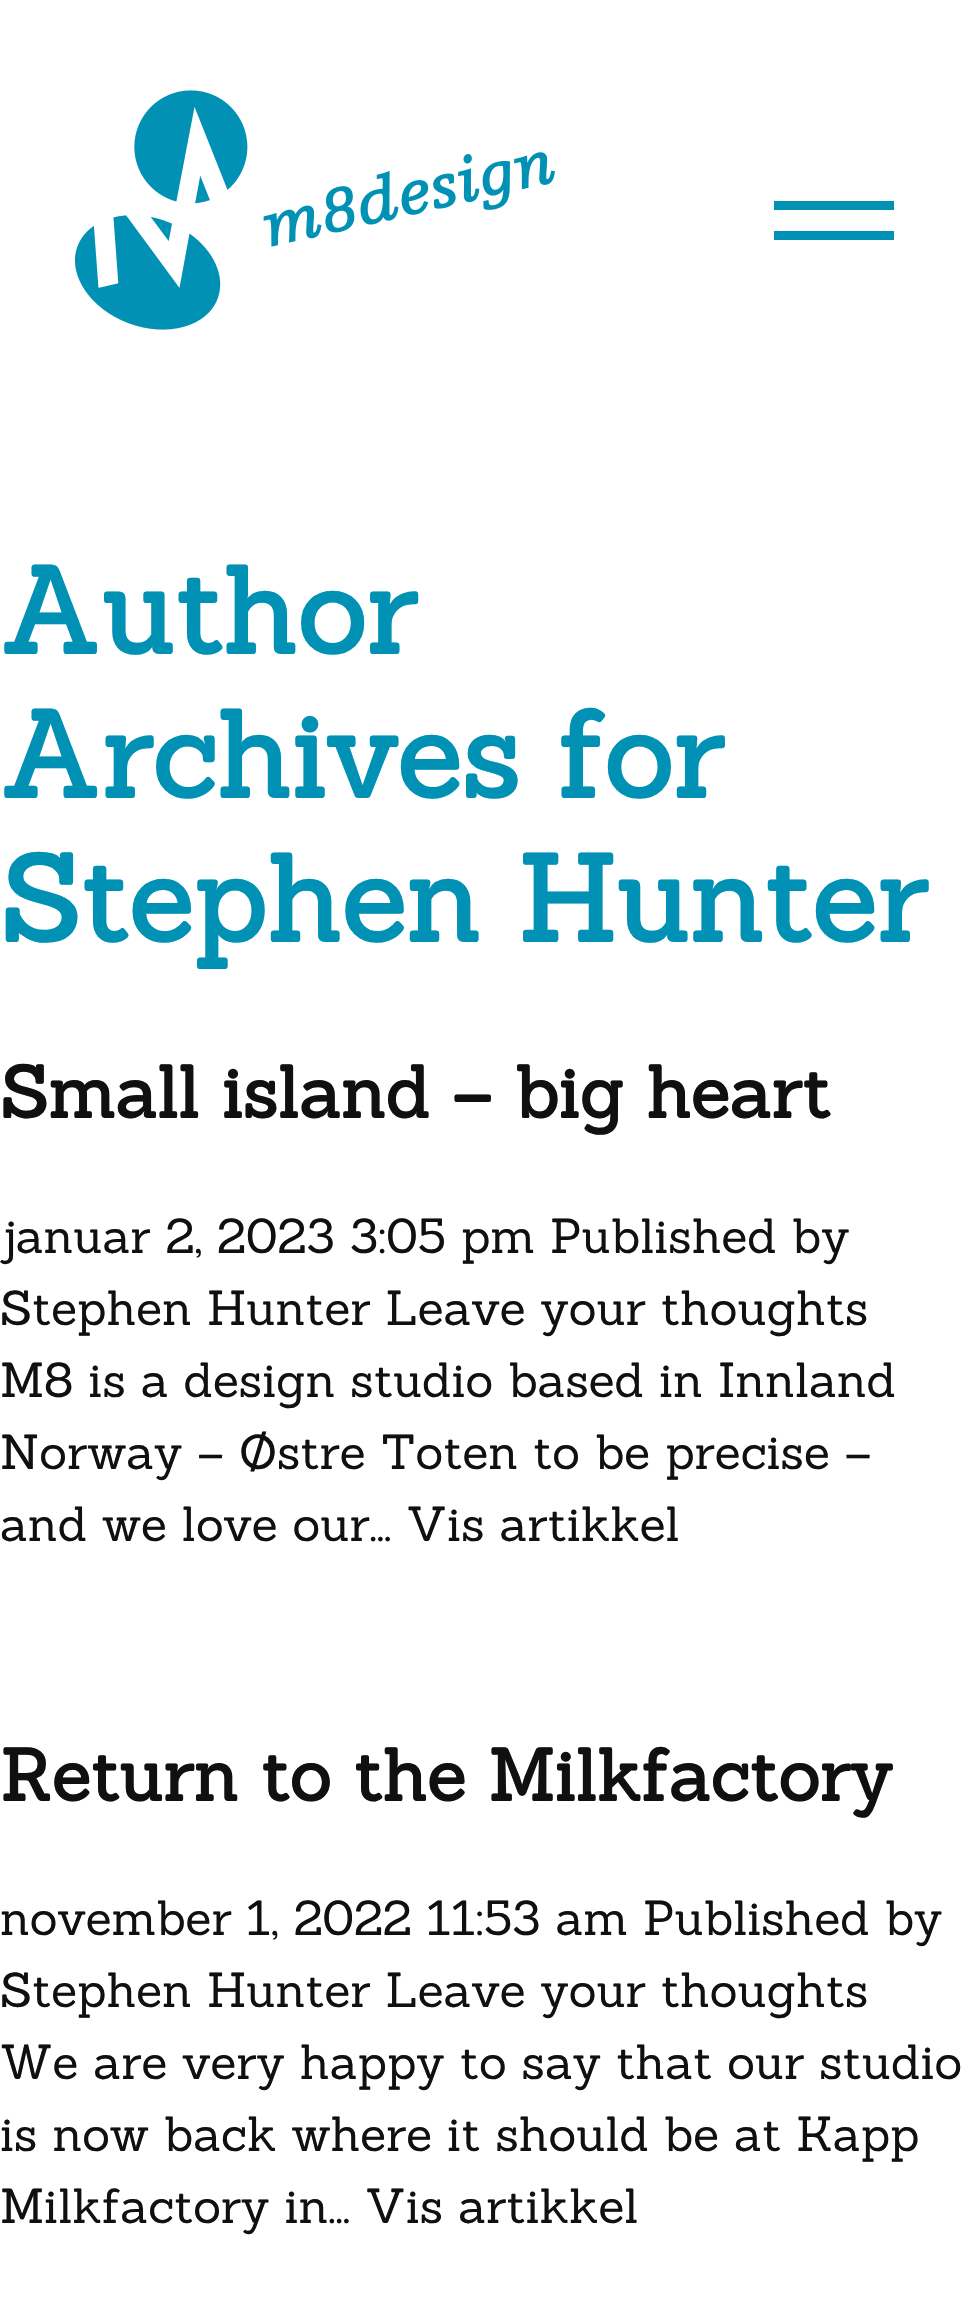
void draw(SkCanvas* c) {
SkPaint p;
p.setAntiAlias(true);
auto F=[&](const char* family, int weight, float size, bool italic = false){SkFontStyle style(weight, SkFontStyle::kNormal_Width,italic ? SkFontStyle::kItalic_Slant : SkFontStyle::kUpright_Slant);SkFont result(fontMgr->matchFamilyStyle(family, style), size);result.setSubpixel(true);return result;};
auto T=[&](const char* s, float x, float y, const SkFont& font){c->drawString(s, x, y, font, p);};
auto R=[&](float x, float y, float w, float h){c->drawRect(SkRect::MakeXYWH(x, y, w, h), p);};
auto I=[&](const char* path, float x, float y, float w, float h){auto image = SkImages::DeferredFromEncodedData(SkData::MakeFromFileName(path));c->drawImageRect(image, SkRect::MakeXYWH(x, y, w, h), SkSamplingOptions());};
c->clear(0xffffffff);
I("1.png",75,90,480,240);
p.setColor(0xff0091b5);
R(774,201,120,9);
R(774,231,120,9);
auto f1 = F("Sanchez",700,120);
T("Author",0,654,f1);
T("Archives for",0,798,f1);
T("Stephen Hunter",0,942,f1);
auto f2 = F("Sanchez",700,72);
p.setColor(0xff101010);
T("Small island – big heart",0,1118,f2);
auto f3 = F("Sanchez",400,48);
T("januar 2, 2023 3:05 pm Published by",0,1253,f3);
T("Stephen Hunter Leave your thoughts",0,1325,f3);
T("M8 is a design studio based in Innland",0,1397,f3);
T("Norway – Østre Toten to be precise –",0,1469,f3);
T("and we love our... Vis artikkel",0,1541,f3);
T("Return to the Milkfactory",0,1801,f2);
T("november 1, 2022 11:53 am Published by",0,1935,f3);
T("Stephen Hunter Leave your thoughts",0,2007,f3);
T("We are very happy to say that our studio",0,2079,f3);
T("is now back where it should be at Kapp",0,2151,f3);
T("Milkfactory in... Vis artikkel",0,2223,f3);
}
